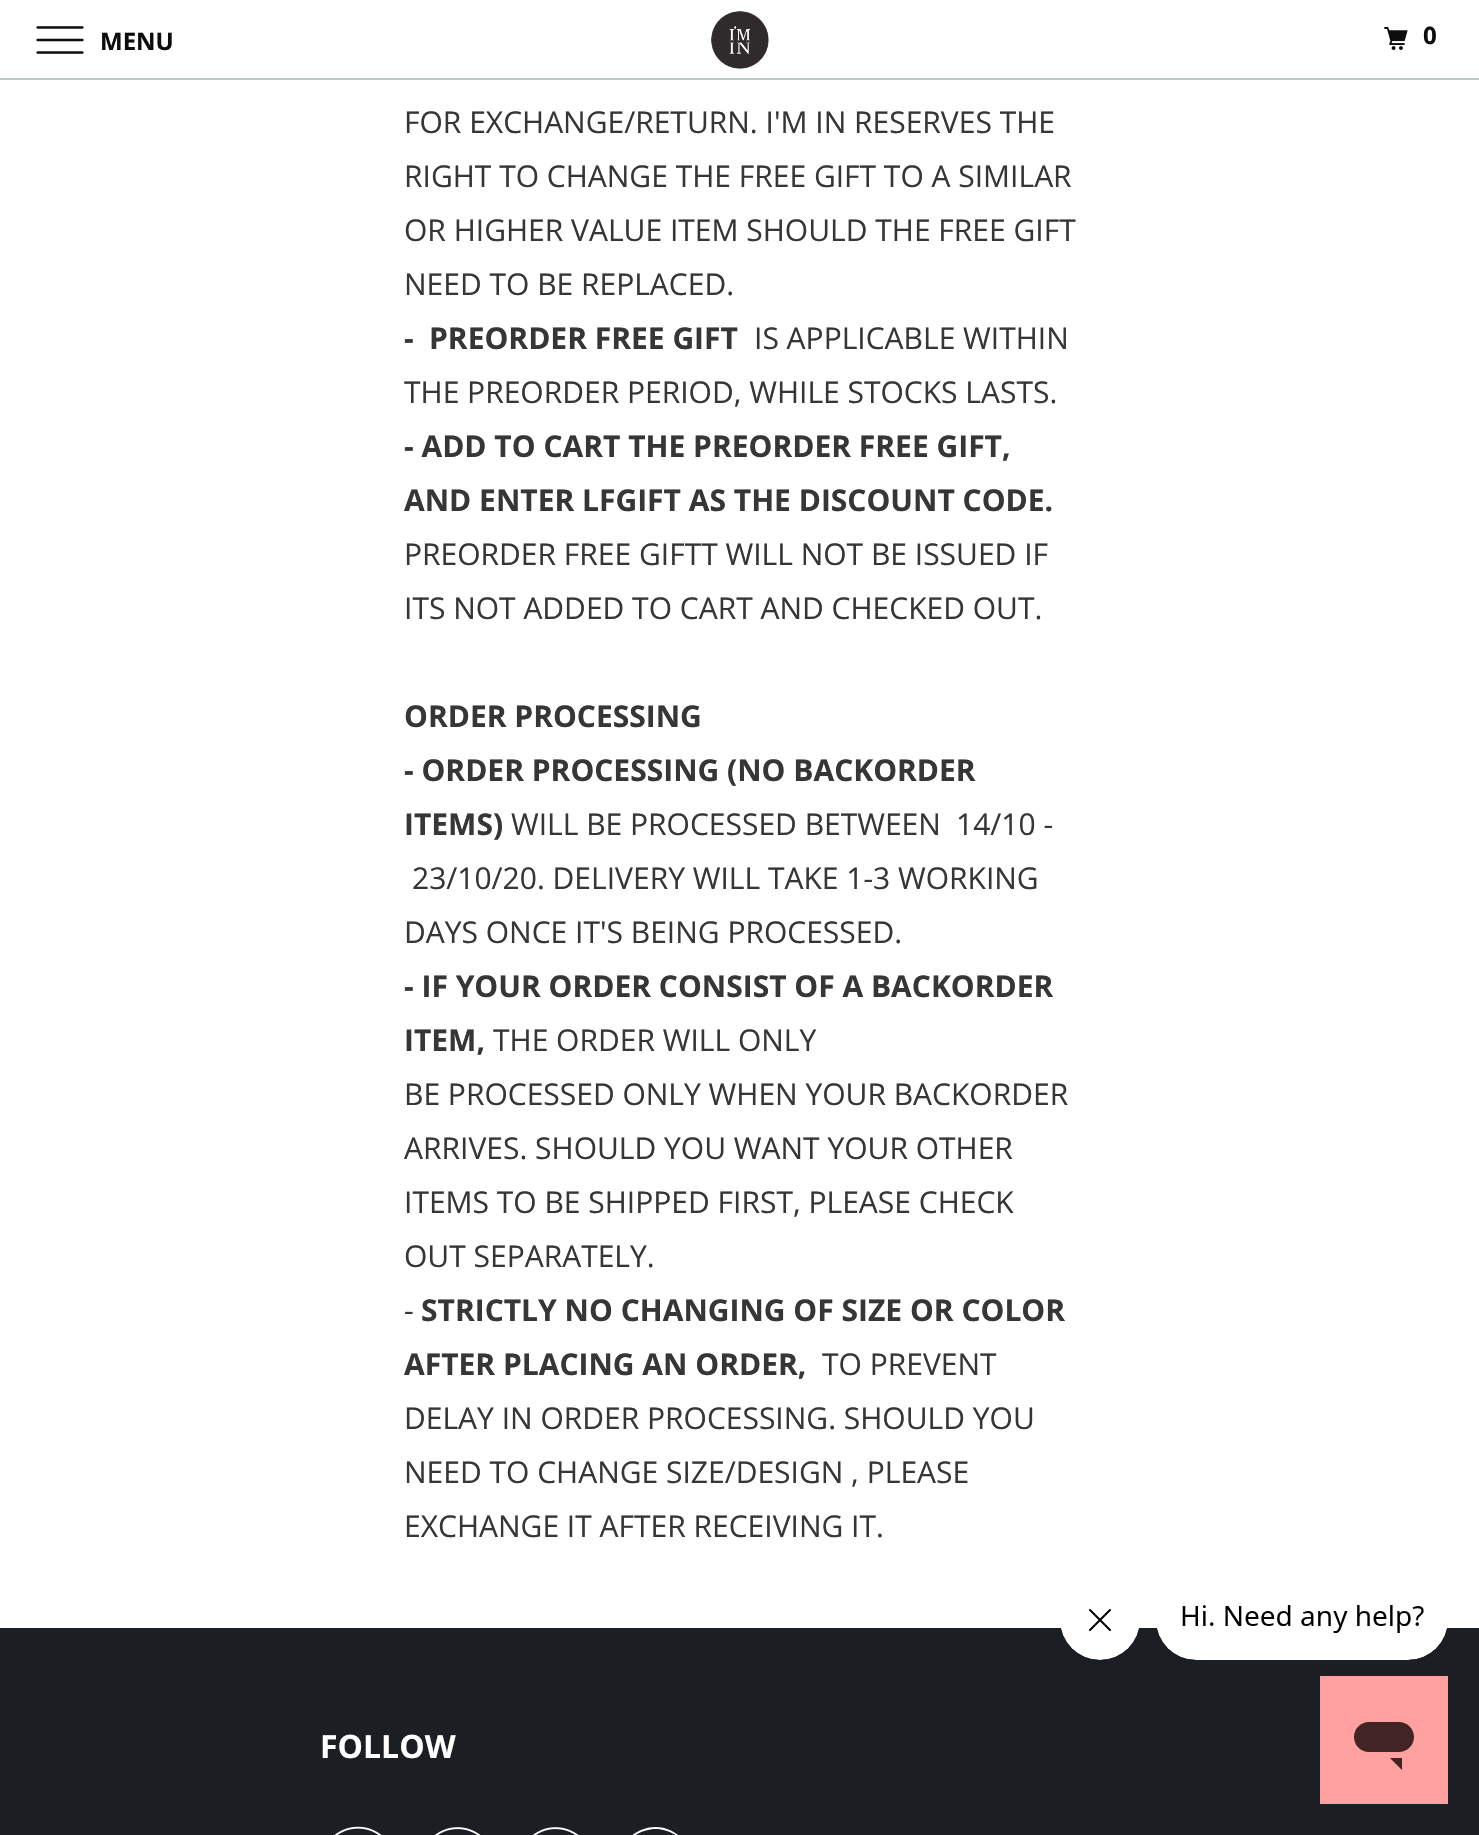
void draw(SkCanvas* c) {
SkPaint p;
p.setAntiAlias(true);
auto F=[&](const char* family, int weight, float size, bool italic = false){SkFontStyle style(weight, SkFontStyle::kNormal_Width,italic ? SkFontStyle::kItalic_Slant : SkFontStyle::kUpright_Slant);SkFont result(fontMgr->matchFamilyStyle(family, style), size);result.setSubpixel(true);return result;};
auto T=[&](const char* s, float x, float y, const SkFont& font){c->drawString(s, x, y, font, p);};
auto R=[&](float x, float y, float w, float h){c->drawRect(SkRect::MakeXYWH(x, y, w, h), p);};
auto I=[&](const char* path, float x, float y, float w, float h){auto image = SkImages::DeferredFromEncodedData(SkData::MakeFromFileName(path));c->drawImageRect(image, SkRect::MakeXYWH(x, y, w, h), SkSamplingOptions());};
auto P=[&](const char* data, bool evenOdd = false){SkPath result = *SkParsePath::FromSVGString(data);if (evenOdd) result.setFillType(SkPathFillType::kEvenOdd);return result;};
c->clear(0xffffffff);
p.setColor(0xf2b8c6c6);
R(0,78,1479,2);
I("1.png",36,26,48,28);
auto f1 = F("Open Sans",700,24);
p.setColor(0xff0d0d0d);
T("MENU",100,50,f1);
I("2.png",711,11,58,58);
I("3.png",1384,27,24,23);
T("0",1423,44,f1);
auto f2 = F("Open Sans",400,30);
p.setColor(0xff363636);
T("FOR EXCHANGE/RETURN. I'M IN RESERVES THE",404,133,f2);
T("RIGHT TO CHANGE THE FREE GIFT TO A SIMILAR",404,187,f2);
T("OR HIGHER VALUE ITEM SHOULD THE FREE GIFT",404,241,f2);
T("NEED TO BE REPLACED.",404,295,f2);
auto f3 = F("Open Sans",700,30);
T("-",404,349,f3);
T("PREORDER FREE GIFT",429,349,f3);
T("IS APPLICABLE WITHIN",754,349,f2);
T("THE PREORDER PERIOD, WHILE STOCKS LASTS.",404,403,f2);
T("- ADD TO CART THE PREORDER FREE GIFT,",404,457,f3);
T("AND ENTER LFGIFT AS THE DISCOUNT CODE.",404,511,f3);
T("PREORDER FREE GIFTT WILL NOT BE ISSUED IF",404,565,f2);
T("ITS NOT ADDED TO CART AND CHECKED OUT.",404,619,f2);
T("ORDER PROCESSING",404,727,f3);
T("- ORDER PROCESSING (NO BACKORDER",404,781,f3);
T("ITEMS)",404,835,f3);
T("WILL BE PROCESSED BETWEEN",511,835,f2);
T("14/10 -",956,835,f2);
T("23/10/20. DELIVERY WILL TAKE 1-3 WORKING",412,889,f2);
T("DAYS ONCE IT'S BEING PROCESSED.",404,943,f2);
T("- IF YOUR ORDER CONSIST OF A BACKORDER",404,997,f3);
T("ITEM,",404,1051,f3);
T("THE ORDER WILL ONLY",493,1051,f2);
T("BE PROCESSED ONLY WHEN YOUR BACKORDER",404,1105,f2);
T("ARRIVES. SHOULD YOU WANT YOUR OTHER",404,1159,f2);
T("ITEMS TO BE SHIPPED FIRST, PLEASE CHECK",404,1213,f2);
T("OUT SEPARATELY.",404,1267,f2);
T("-",404,1321,f2);
T("STRICTLY NO CHANGING OF SIZE OR COLOR",421,1321,f3);
T("AFTER PLACING AN ORDER,",404,1375,f3);
T("TO PREVENT",822,1375,f2);
T("DELAY IN ORDER PROCESSING. SHOULD YOU",404,1429,f2);
T("NEED TO CHANGE SIZE/DESIGN , PLEASE",404,1483,f2);
T("EXCHANGE IT AFTER RECEIVING IT.",404,1537,f2);
p.setColor(0xff1b1f23);
R(0,1628,1479,207);
auto f4 = F("Open Sans",700,32);
p.setColor(0xffffffff);
T("FOLLOW",320,1758,f4);
I("4.png",334,1826,48,9);
I("5.png",435,1827,46,8);
I("5.png",533,1827,46,8);
c->drawPath(P("M662 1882l-8-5l-6 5v-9l15-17l-18 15l-11-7l37-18zm-6-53c-8 0-16 3-22 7c-27 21-12 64 22 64c34 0 48-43 21-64c-6-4-14-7-21-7zm0 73c-8 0-16-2-23-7c-29-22-13-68 23-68c8 0 16 3 22 8c29 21 13 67-22 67z"),p);
I("6.png",1061,1609,78,51);
I("7.png",1157,1605,290,55);
I("8.png",1320,1676,128,128);
}
